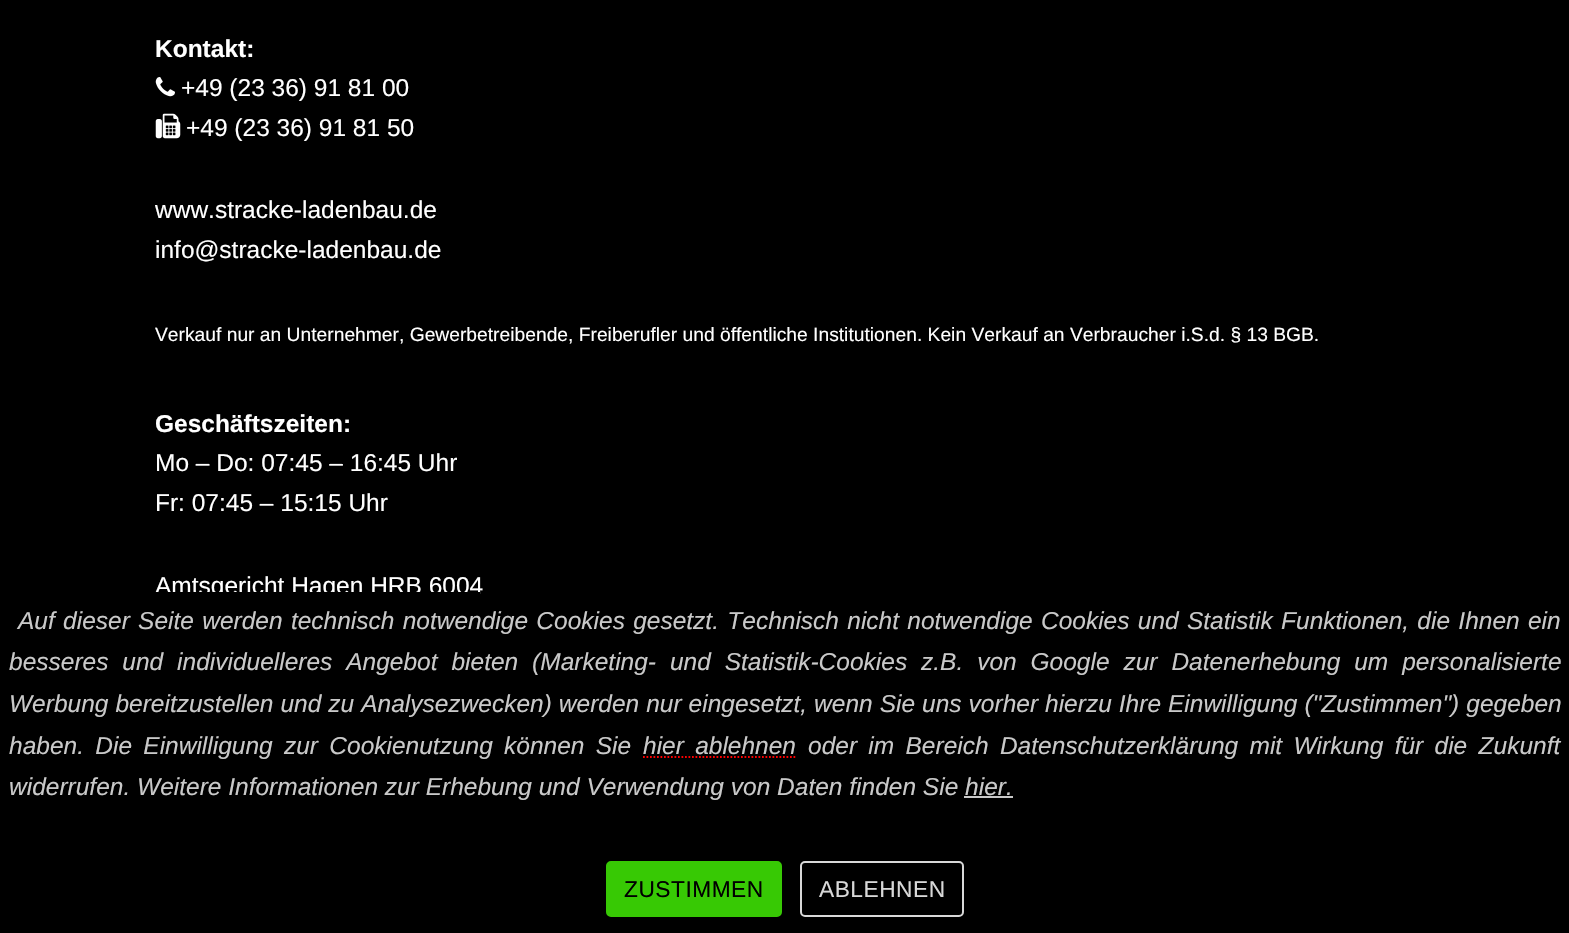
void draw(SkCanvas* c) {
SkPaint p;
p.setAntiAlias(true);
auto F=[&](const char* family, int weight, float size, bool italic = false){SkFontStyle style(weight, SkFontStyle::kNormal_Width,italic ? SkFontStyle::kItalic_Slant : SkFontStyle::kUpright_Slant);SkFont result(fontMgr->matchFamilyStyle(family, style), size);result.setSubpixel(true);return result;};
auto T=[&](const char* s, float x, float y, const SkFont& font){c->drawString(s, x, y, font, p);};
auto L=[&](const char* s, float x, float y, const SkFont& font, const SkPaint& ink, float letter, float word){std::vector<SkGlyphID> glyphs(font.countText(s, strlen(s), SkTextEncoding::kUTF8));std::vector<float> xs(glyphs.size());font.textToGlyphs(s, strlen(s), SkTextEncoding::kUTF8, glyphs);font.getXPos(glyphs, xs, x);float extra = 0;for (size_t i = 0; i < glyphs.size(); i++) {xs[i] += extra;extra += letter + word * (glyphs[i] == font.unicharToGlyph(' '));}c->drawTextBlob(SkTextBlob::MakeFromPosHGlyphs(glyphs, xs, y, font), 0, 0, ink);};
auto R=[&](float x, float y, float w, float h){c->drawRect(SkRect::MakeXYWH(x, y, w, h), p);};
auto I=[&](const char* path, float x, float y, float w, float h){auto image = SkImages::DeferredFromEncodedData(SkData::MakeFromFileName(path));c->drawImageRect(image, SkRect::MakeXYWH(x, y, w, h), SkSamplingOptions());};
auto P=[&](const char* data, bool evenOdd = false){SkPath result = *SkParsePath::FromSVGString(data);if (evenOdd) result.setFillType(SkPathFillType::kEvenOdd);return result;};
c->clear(0xff000000);
auto f1 = F("Liberation Sans",700,24.5);
p.setColor(0xffffffff);
T("Kontakt:",155,57,f1);
I("1.png",155,77,20,20);
auto f2 = F("Liberation Sans",400,24.5);
T("+49 (23 36) 91 81 00",181,96,f2);
I("2.png",155,113,26,26);
T("+49 (23 36) 91 81 50",186,136,f2);
T("www.stracke-ladenbau.de",155,218,f2);
T("info@stracke-ladenbau.de",155,258,f2);
auto f3 = F("Liberation Sans",400,19.25);
T("Verkauf nur an Unternehmer, Gewerbetreibende, Freiberufler und öffentliche Institutionen. Kein Verkauf an Verbraucher i.S.d. § 13 BGB.",155,341,f3);
T("Geschäftszeiten:",155,432,f1);
T("Mo – Do: 07:45 – 16:45 Uhr",155,471,f2);
T("Fr: 07:45 – 15:15 Uhr",155,511,f2);
T("Amtsgericht Hagen HRB 6004",155,594,f2);
p.setColor(0xff000000);
R(155,592,325,8);
auto f4 = F("Liberation Sans",400,24.5,true);
p.setColor(0xffc9c9c9);
L("Auf dieser Seite werden technisch notwendige Cookies gesetzt. Technisch nicht notwendige Cookies und Statistik Funktionen, die Ihnen ein",18,629,f4,p,0,1.5);
L("besseres und individuelleres Angebot bieten (Marketing- und Statistik-Cookies z.B. von Google zur Datenerhebung um personalisierte",9,670,f4,p,0,7.1);
L("Werbung bereitzustellen und zu Analysezwecken) werden nur eingesetzt, wenn Sie uns vorher hierzu Ihre Einwilligung (\"Zustimmen\") gegeben",9,712,f4,p,0,.2);
L("haben. Die Einwilligung zur Cookienutzung können Sie",9,754,f4,p,0,4.5);
L("hier ablehnen",643,754,f4,p,0,4.5);
p.setStroke(true);
p.setStrokeWidth(1.8);
p.setColor(0xffff0000);
p.setPathEffect(SkDashPathEffect::Make({{1.75f,1.75f}}, 0));
c->drawPath(P("M643 757h153.5"),p);
p.setPathEffect(nullptr);
p.setStroke(false);
p.setColor(0xffc9c9c9);
L("oder im Bereich Datenschutzerklärung mit Wirkung für die Zukunft",808,754,f4,p,0,4.5);
T("widerrufen. Weitere Informationen zur Erhebung und Verwendung von Daten finden Sie hier.",9,795,f4);
R(964,796,49,2);
p.setColor(0xff000000);
c->drawPath(P("M1536 753.5l2.5 2.5l-19 18.5l-2.5-2.5z"),p);
p.setColor(0xff37c904);
c->drawRoundRect(SkRect::MakeXYWH(607,862,174,54),4,4,p);
p.setStroke(true);
p.setStrokeWidth(2);
c->drawRoundRect(SkRect::MakeXYWH(607,862,174,54),4,4,p);
auto f5 = F("Liberation Sans",400,22.75);
p.setStroke(false);
p.setColor(0xff000000);
L("ZUSTIMMEN",624,897,f5,p,.5,0);
p.setStroke(true);
p.setColor(0xffd8d8d8);
c->drawRoundRect(SkRect::MakeXYWH(801,862,162,54),4,4,p);
p.setStroke(false);
L("ABLEHNEN",819,897,f5,p,.5,0);
}
